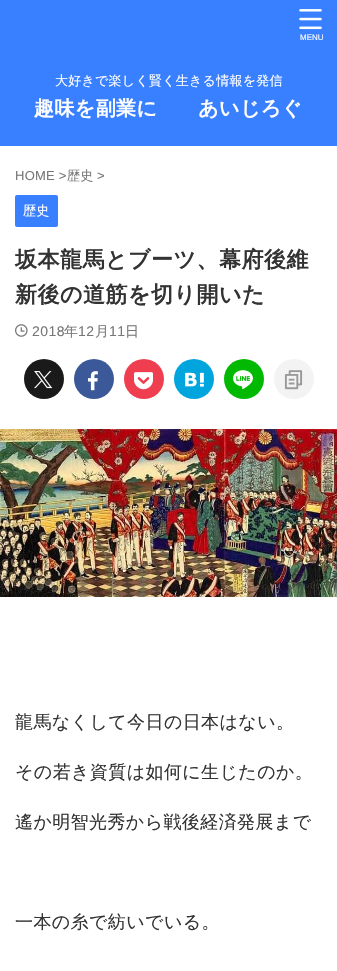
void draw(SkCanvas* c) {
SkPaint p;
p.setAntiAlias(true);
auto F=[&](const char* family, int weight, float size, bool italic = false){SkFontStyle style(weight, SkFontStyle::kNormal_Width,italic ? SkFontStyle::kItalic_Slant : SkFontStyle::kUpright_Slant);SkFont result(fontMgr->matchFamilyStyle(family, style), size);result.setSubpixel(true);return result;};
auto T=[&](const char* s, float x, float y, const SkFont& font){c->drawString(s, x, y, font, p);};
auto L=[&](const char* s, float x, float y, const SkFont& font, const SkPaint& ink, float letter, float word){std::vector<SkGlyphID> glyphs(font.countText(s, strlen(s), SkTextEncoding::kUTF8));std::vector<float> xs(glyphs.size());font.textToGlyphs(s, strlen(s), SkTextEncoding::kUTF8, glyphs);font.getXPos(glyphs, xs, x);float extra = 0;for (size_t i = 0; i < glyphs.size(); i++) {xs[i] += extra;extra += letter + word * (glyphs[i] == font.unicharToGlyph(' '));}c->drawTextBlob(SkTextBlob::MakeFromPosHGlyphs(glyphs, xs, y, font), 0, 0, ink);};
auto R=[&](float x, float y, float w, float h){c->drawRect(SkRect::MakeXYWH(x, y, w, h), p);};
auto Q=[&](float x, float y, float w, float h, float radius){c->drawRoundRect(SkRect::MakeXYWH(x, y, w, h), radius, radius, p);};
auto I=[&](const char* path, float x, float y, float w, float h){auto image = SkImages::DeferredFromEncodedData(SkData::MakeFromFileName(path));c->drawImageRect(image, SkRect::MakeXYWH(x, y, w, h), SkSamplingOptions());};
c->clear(0xffffffff);
p.setColor(0xff3880ff);
R(0,0,337,146);
I("1.png",299,9,23,21);
auto f1 = F("Liberation Sans",400,8);
p.setColor(0xffffffff);
T("MENU",300,40,f1);
auto f2 = F("WenQuanYi Zen Hei",500,13);
L("大好きで楽しく賢く生きる情報を発信",55,85,f2,p,.25,0);
auto f3 = F("WenQuanYi Zen Hei",700,20);
L("趣味を副業に　　あいじろぐ",34,115,f3,p,.4,0);
auto f4 = F("Liberation Sans",400,13);
p.setColor(0xff777777);
L("HOME >",15,180,f4,p,.25,0);
L("歴史",67,180,f2,p,.25,0);
L(">",97,180,f4,p,.25,0);
p.setColor(0xff3880ff);
Q(15,195,43,32,2);
p.setColor(0xffffffff);
L("歴史",23,215,f2,p,.25,0);
auto f5 = F("WenQuanYi Zen Hei",700,22);
p.setColor(0xff333333);
L("坂本龍馬とブーツ、幕府後維",15,267,f5,p,.5,0);
L("新後の道筋を切り開いた",15,302,f5,p,.5,0);
I("2.png",15,324,13,13);
auto f6 = F("Liberation Sans",400,14);
p.setColor(0xff777777);
L("2018",32,336,f6,p,.5,0);
auto f7 = F("WenQuanYi Zen Hei",500,14);
L("年",64,336,f7,p,.5,0);
L("12",78,336,f6,p,.5,0);
L("月",95,336,f7,p,.5,0);
L("11",109,336,f6,p,.5,0);
L("日",125,336,f7,p,.5,0);
p.setColor(0xff1a1a1a);
c->drawCircle(44,379,20,p);
I("3.png",34,371,19,18);
p.setColor(0xff3b5998);
c->drawCircle(94,379,20,p);
I("4.png",88,371,10,20);
p.setColor(0xfff03e51);
c->drawCircle(144,379,20,p);
I("5.png",134,372,19,18);
p.setColor(0xff00a5de);
c->drawCircle(194,379,20,p);
I("6.png",185,372,19,15);
p.setColor(0xff00b900);
c->drawCircle(244,379,20,p);
I("7.png",233,370,20,20);
p.setColor(0xfff3f3f3);
c->drawCircle(294,379,20,p);
I("8.png",284,370,19,20);
I("9.png",0,429,337,168);
auto f8 = F("WenQuanYi Zen Hei",500,18);
p.setColor(0xff333333);
L("龍馬なくして今日の日本はない。",15,728,f8,p,.4,0);
L("その若き資質は如何に生じたのか。",15,778,f8,p,.4,0);
L("遙か明智光秀から戦後経済発展まで",15,828,f8,p,.4,0);
L("一本の糸で紡いでいる。",15,928,f8,p,.4,0);
}
